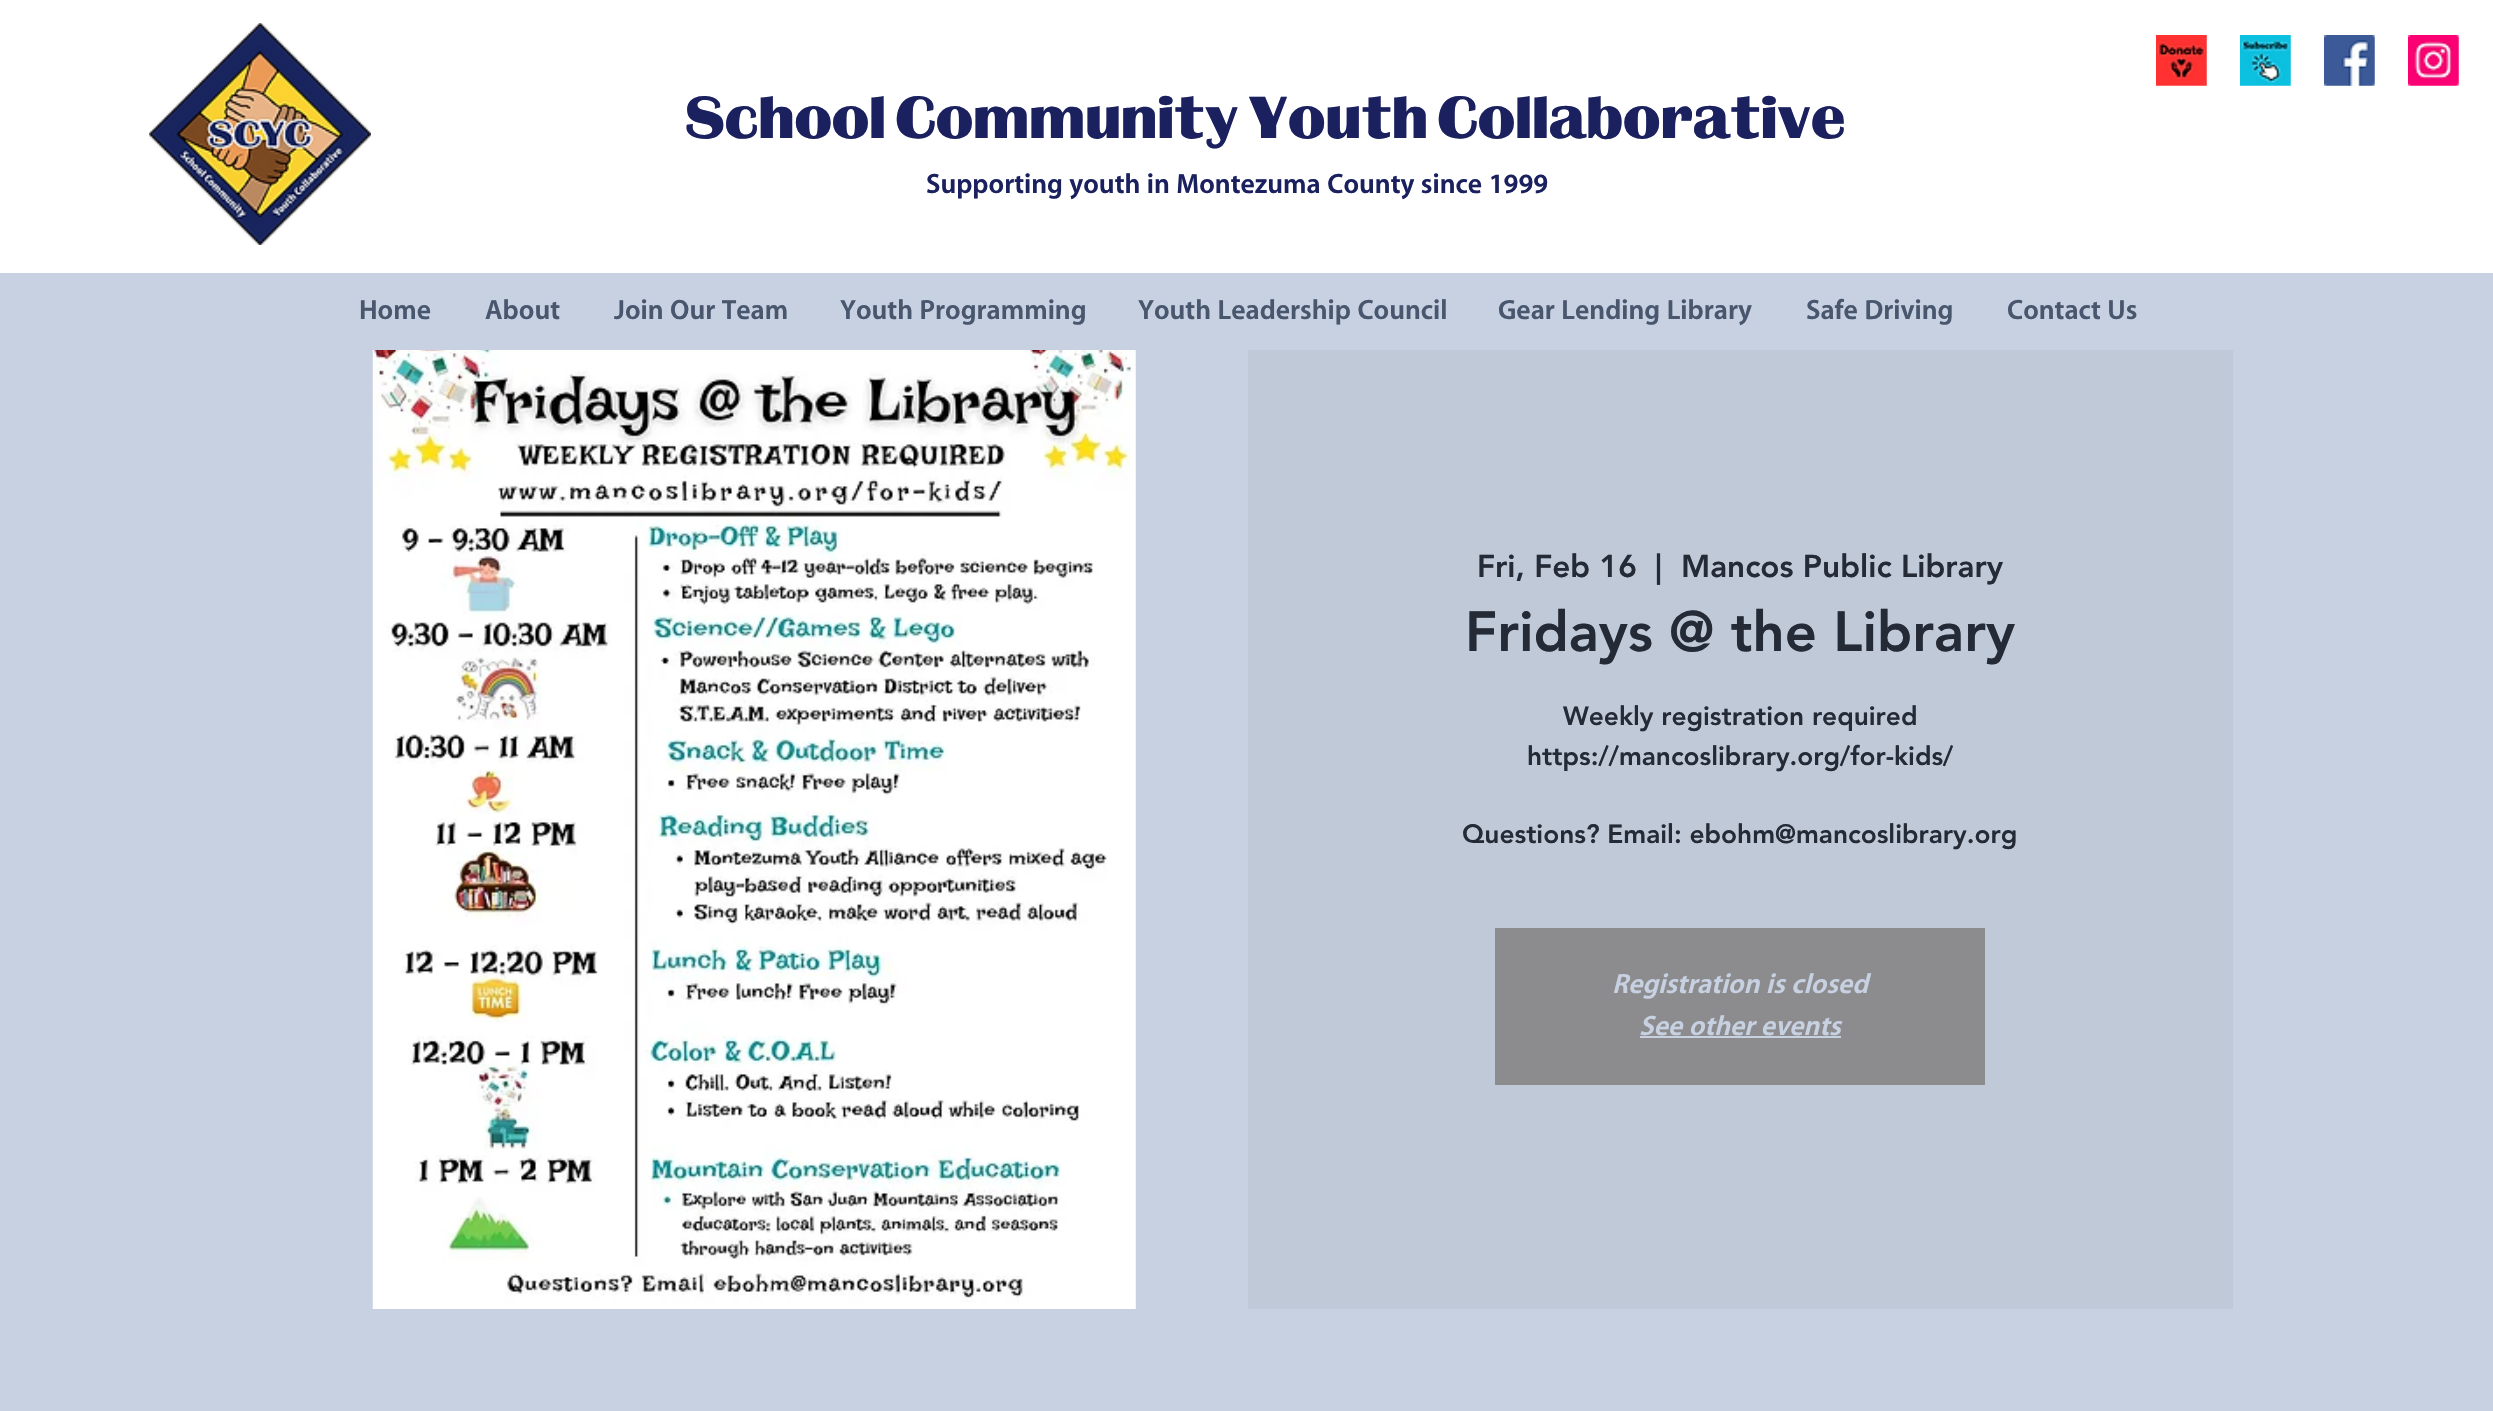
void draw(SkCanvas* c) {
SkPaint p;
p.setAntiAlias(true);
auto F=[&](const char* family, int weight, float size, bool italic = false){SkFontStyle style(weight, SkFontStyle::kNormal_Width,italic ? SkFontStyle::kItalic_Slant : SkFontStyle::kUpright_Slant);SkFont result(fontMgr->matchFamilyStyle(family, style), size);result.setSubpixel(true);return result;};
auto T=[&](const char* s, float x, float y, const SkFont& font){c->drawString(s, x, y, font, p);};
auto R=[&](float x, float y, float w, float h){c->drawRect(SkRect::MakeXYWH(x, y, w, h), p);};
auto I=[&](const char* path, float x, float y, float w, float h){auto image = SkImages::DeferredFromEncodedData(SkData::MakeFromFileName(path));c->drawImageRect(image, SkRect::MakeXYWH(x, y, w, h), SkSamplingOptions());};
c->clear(0xffc7d1e1);
p.setColor(0xffffffff);
R(0,0,2493,273);
I("1.png",2156,35,51,51);
I("2.png",2240,35,51,51);
I("3.png",2324,35,51,51);
I("4.png",2408,35,51,51);
I("5.png",149,23,222,222);
auto f1 = F("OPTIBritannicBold",700,52.5);
p.setColor(0xff1b215f);
T("School Community Youth Collaborative",683,138,f1);
auto f2 = F("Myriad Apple",700,28);
T("Supporting youth in Montezuma County since 1999",926,193,f2);
p.setColor(0xff48566e);
T("Home",359,319,f2);
T("About",485,319,f2);
T("Join Our Team",614,319,f2);
T("Youth Programming",840,319,f2);
T("Youth Leadership Council",1138,319,f2);
T("Gear Lending Library",1498,319,f2);
T("Safe Driving",1806,319,f2);
T("Contact Us",2007,319,f2);
I("6.png",372,350,764,959);
p.setColor(0xffc0c9d8);
R(1248,350,985,959);
auto f3 = F("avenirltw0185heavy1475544",900,31.5);
p.setColor(0xff242b37);
T("Fri, Feb 16",1477,577,f3);
T("|",1655,577,f3);
T("Mancos Public Library",1681,577,f3);
auto f4 = F("avenirltw0185heavy1475544",900,56);
T("Fridays @ the Library",1465,651,f4);
auto f5 = F("avenirltw0185heavy1475544",900,26.25);
T("Weekly registration required",1563,725,f5);
T("https://mancoslibrary.org/for-kids/",1527,765,f5);
T("Questions? Email: ebohm@mancoslibrary.org",1462,843,f5);
p.setColor(0xff8c8c8e);
R(1495,928,490,157);
auto f6 = F("Myriad Apple",700,28,true);
p.setColor(0xffc7d1e1);
T("Registration is closed",1612,993,f6);
T("See other events",1639,1035,f6);
R(1640,1036,201,2);
}
